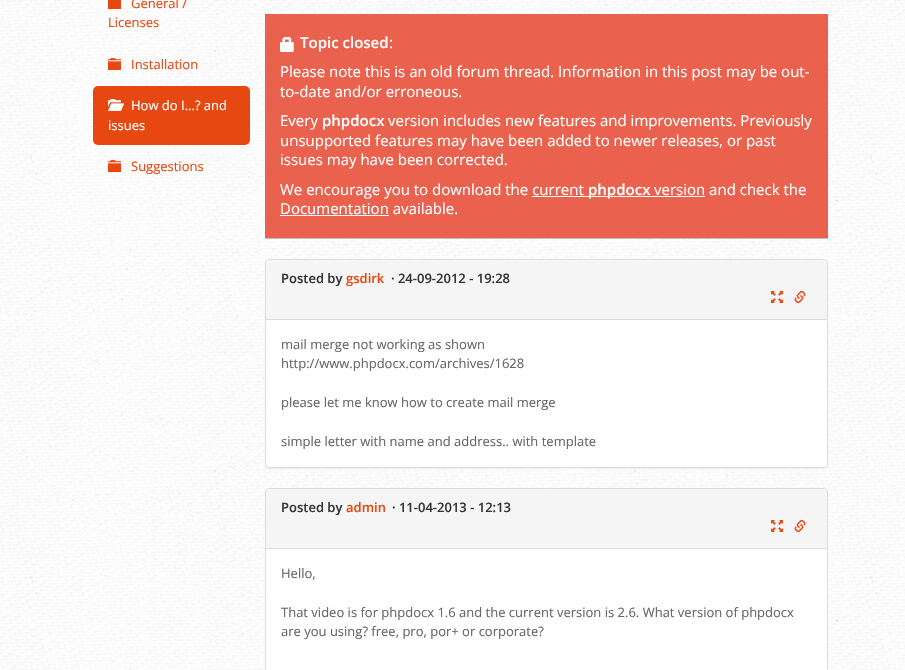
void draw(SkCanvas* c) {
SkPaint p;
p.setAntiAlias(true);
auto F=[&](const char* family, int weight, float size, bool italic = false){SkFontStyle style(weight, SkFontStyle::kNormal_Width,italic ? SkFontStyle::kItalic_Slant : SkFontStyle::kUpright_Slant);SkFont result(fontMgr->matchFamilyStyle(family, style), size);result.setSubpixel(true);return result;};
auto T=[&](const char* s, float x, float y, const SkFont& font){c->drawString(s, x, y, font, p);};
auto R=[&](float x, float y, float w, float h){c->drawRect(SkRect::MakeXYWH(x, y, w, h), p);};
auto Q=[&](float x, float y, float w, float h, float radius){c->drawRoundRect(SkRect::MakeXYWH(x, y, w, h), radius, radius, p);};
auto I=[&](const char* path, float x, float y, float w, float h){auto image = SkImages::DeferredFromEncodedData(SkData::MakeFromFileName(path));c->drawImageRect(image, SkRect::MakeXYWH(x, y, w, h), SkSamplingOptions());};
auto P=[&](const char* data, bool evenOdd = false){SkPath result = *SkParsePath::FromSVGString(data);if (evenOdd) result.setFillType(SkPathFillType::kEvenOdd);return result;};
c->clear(0xffffffff);
I("1.png",0,0,905,670);
p.setColor(0xffe74710);
R(108,0,13,9);
auto f1 = F("Open Sans",400,13);
T("General /",131,8,f1);
T("Licenses",108,27,f1);
I("2.png",108,58,13,12);
T("Installation",131,69,f1);
Q(93,86,157,59,5);
I("3.png",108,99,17,12);
p.setColor(0xffffffff);
T("How do I...? and",131,110,f1);
T("issues",108,130,f1);
I("4.png",108,160,13,12);
p.setColor(0xffe74710);
T("Suggestions",131,171,f1);
p.setColor(0xffea614d);
R(265,14,563,224);
p.setColor(0xffc1c1c1);
R(265,238,563,1);
I("5.png",280,37,14,15);
auto f2 = F("Open Sans",600,15);
p.setColor(0xffffffff);
T("Topic closed",300,48,f2);
auto f3 = F("Open Sans",400,15);
T(":",389,48,f3);
T("Please note this is an old forum thread. Information in this post may be out-",280,77,f3);
T("to-date and/or erroneous.",280,97,f3);
T("Every",280,126,f3);
T("phpdocx",322,126,f2);
T("version includes new features and improvements. Previously",388,126,f3);
T("unsupported features may have been added to newer releases, or past",280,146,f3);
T("issues may have been corrected.",280,165,f3);
T("We encourage you to download the current",280,195,f3);
R(532,196,173,1);
T("phpdocx",588,195,f2);
T("version and check the",654,195,f3);
T("Documentation available.",280,214,f3);
R(280,215,109,1);
p.setColor(0x0d000000);
p.setMaskFilter(SkMaskFilter::MakeBlur(kNormal_SkBlurStyle, .5));
c->drawRoundRect(SkRect::MakeXYWH(265,260,563,209),4,4,p);
p.setMaskFilter(nullptr);
p.setColor(0xffffffff);
c->drawRoundRect(SkRect::MakeXYWH(265.5,259.5,562,208),3.5,3.5,p);
p.setStroke(true);
p.setStrokeWidth(1);
p.setColor(0xffdddddd);
c->drawRoundRect(SkRect::MakeXYWH(265.5,259.5,562,208),3.5,3.5,p);
p.setStroke(false);
p.setColor(0xfff5f5f5);
c->drawPath(P("M269 260h555c1.5 0 3 1.5 3 3v57h-561v-57c0-1.5 1.5-3 3-3z"),p);
p.setColor(0xffdddddd);
R(266,319,561,1);
auto f4 = F("Open Sans",600,13);
p.setColor(0xff343434);
T("Posted by",281,283,f4);
p.setColor(0xffe74710);
T("gsdirk",346,283,f4);
p.setColor(0xff343434);
T("· 24-09-2012 - 19:28",391,283,f4);
I("6.png",771,291,12,12);
I("7.png",794,290,12,14);
p.setColor(0xff666666);
T("mail merge not working as shown",281,349,f1);
T("http://www.phpdocx.com/archives/1628",281,368,f1);
T("please let me know how to create mail merge",281,407,f1);
T("simple letter with name and address.. with template",281,446,f1);
p.setColor(0xffffffff);
c->drawRoundRect(SkRect::MakeXYWH(265.5,488.5,562,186),3.5,3.5,p);
p.setStroke(true);
p.setColor(0xffdddddd);
c->drawRoundRect(SkRect::MakeXYWH(265.5,488.5,562,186),3.5,3.5,p);
p.setStroke(false);
p.setColor(0xfff5f5f5);
c->drawPath(P("M269 489h555c1.5 0 3 1.5 3 3v57h-561v-57c0-1.5 1.5-3 3-3z"),p);
p.setColor(0xffdddddd);
R(266,548,561,1);
p.setColor(0xff343434);
T("Posted by",281,512,f4);
p.setColor(0xffe74710);
T("admin",346,512,f4);
p.setColor(0xff343434);
T("· 11-04-2013 - 12:13",392,512,f4);
I("6.png",771,520,12,12);
I("7.png",794,519,12,14);
p.setColor(0xff666666);
T("Hello,",281,578,f1);
T("That video is for phpdocx 1.6 and the current version is 2.6. What version of phpdocx",281,617,f1);
T("are you using? free, pro, por+ or corporate?",281,636,f1);
}
